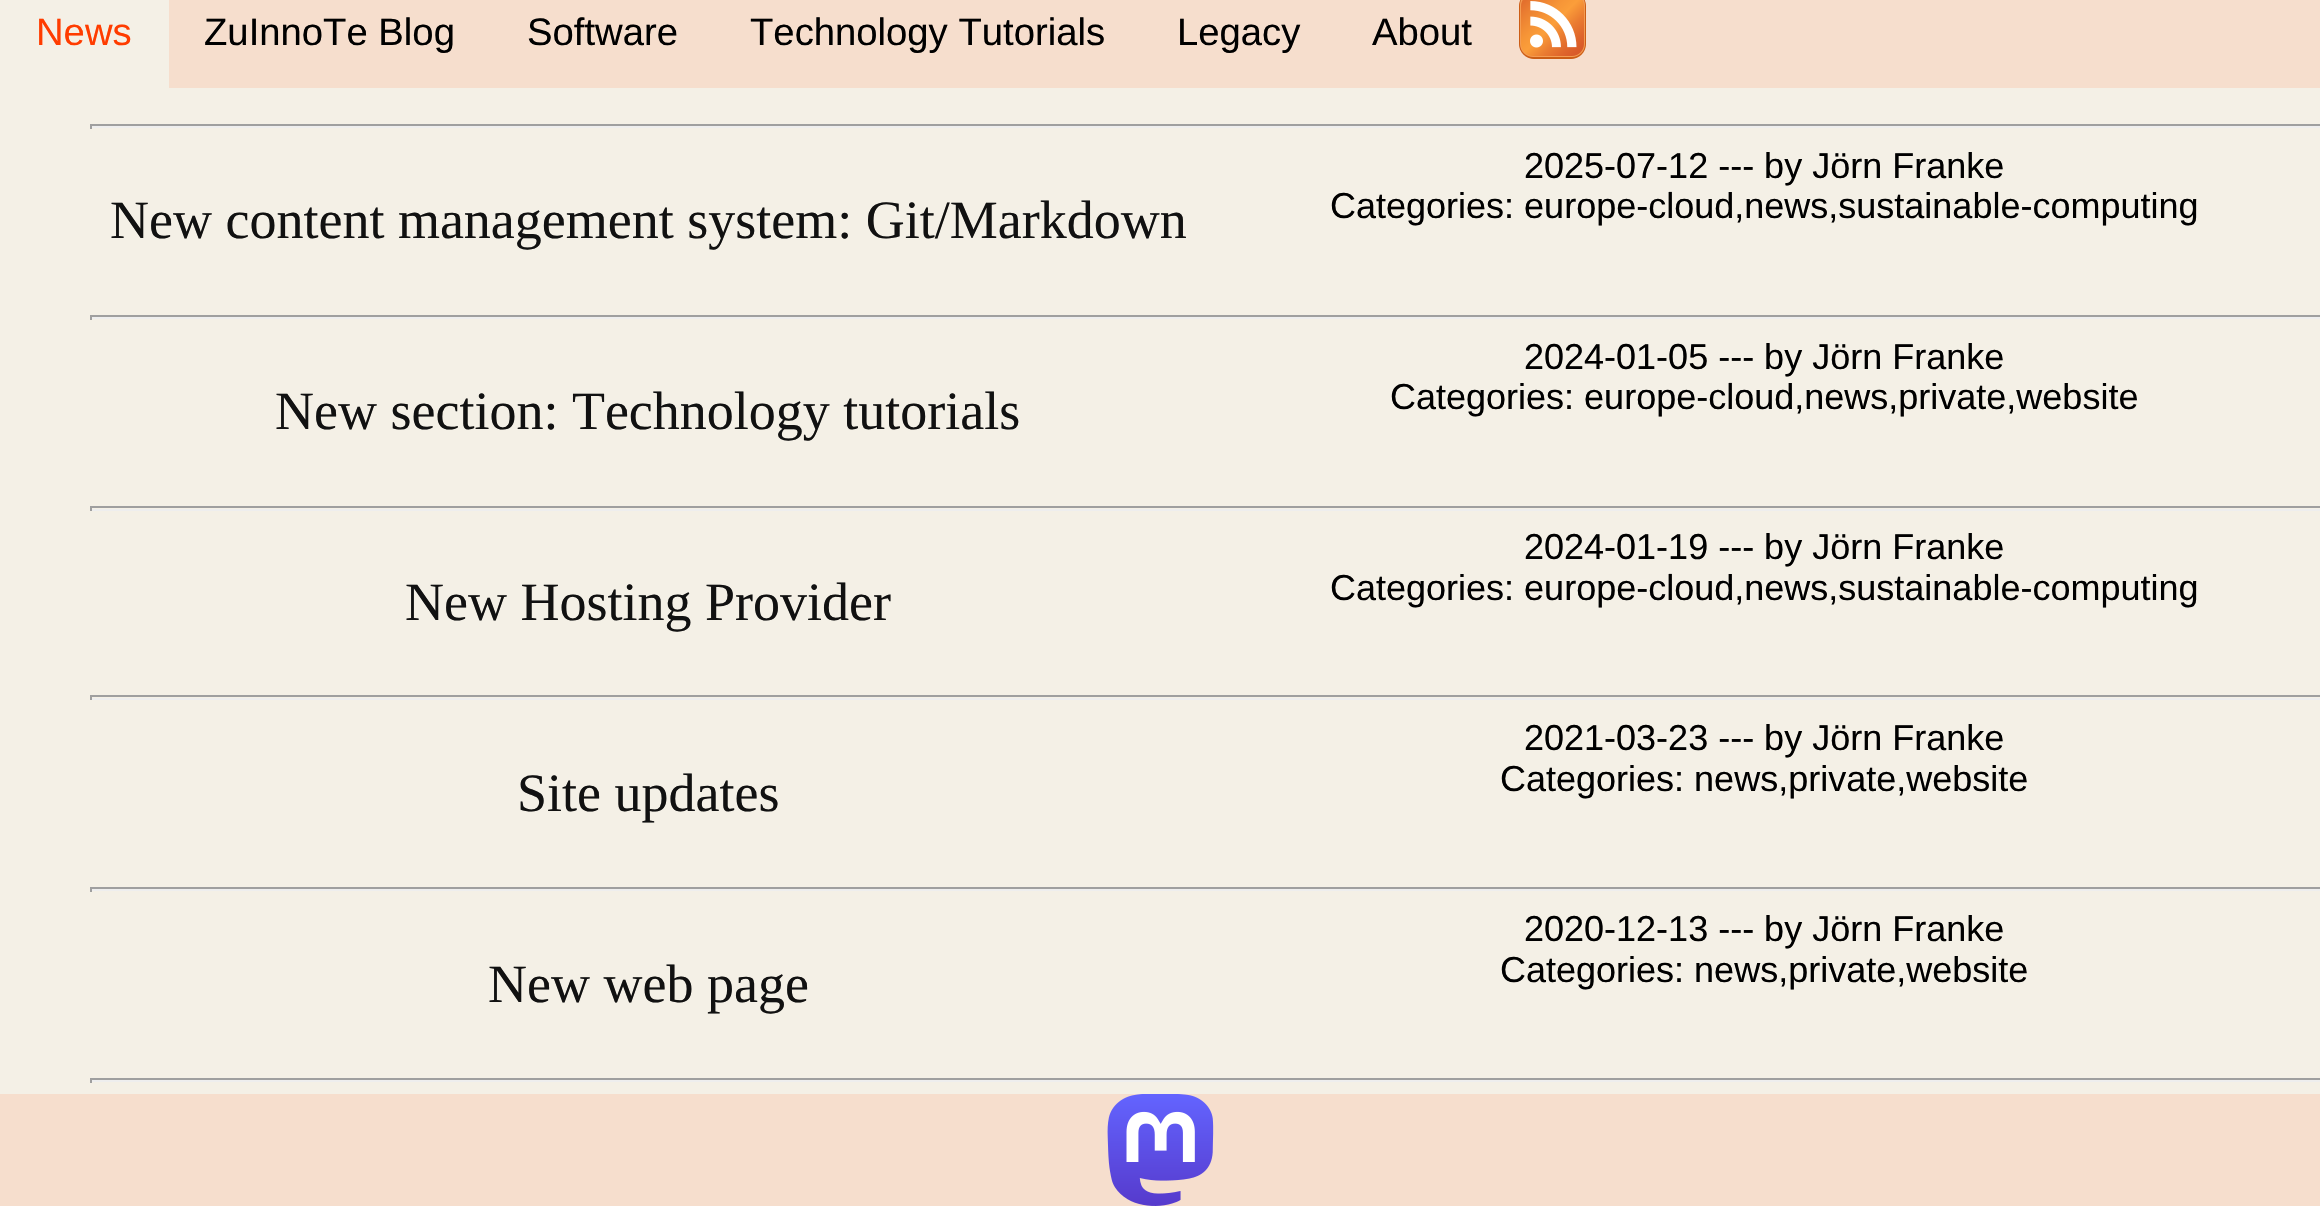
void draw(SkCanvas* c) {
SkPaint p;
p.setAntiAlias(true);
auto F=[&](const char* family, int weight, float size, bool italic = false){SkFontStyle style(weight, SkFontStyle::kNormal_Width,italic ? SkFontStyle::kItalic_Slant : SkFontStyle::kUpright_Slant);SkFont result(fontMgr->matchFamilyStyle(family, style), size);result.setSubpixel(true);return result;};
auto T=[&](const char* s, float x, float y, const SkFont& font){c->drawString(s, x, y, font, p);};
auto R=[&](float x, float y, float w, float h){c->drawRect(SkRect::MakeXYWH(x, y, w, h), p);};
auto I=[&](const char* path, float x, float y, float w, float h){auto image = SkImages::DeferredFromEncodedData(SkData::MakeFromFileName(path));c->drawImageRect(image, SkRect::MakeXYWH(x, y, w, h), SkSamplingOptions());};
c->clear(0xfff4f0e6);
p.setColor(0xfff6decd);
R(169,0,2151,88);
auto f1 = F("Liberation Sans",400,38.25);
p.setColor(0xffff3c00);
T("News",36,45,f1);
p.setColor(0xff000000);
T("ZuInnoTe Blog",204,45,f1);
T("Software",527,45,f1);
T("Technology Tutorials",750,45,f1);
T("Legacy",1177,45,f1);
T("About",1372,45,f1);
I("1.png",1519,0,67,59);
p.setColor(0xff9f9f9f);
R(90,124,2230,2);
p.setColor(0xffeeeeee);
R(90,126,2230,2);
p.setColor(0xff9f9f9f);
R(90,124,2,5);
auto f2 = F("Liberation Serif",400,54);
p.setColor(0xff111111);
T("New content management system: Git/Markdown",110,238,f2);
auto f3 = F("Liberation Sans",400,36);
p.setColor(0xff000000);
T("2025-07-12 --- by Jörn Franke",1524,178,f3);
T("Categories: europe-cloud,news,sustainable-computing",1330,218,f3);
p.setColor(0xff9f9f9f);
R(90,315,2230,2);
p.setColor(0xffeeeeee);
R(90,317,2230,2);
p.setColor(0xff9f9f9f);
R(90,315,2,5);
p.setColor(0xff111111);
T("New section: Technology tutorials",275,429,f2);
p.setColor(0xff000000);
T("2024-01-05 --- by Jörn Franke",1524,369,f3);
T("Categories: europe-cloud,news,private,website",1390,409,f3);
p.setColor(0xff9f9f9f);
R(90,506,2230,2);
p.setColor(0xffeeeeee);
R(90,509,2230,2);
p.setColor(0xff9f9f9f);
R(90,506,2,5);
p.setColor(0xff111111);
T("New Hosting Provider",405,620,f2);
p.setColor(0xff000000);
T("2024-01-19 --- by Jörn Franke",1524,559,f3);
T("Categories: europe-cloud,news,sustainable-computing",1330,600,f3);
p.setColor(0xff9f9f9f);
R(90,695,2230,2);
p.setColor(0xffeeeeee);
R(90,698,2230,2);
p.setColor(0xff9f9f9f);
R(90,695,2,5);
p.setColor(0xff111111);
T("Site updates",517,811,f2);
p.setColor(0xff000000);
T("2021-03-23 --- by Jörn Franke",1524,750,f3);
T("Categories: news,private,website",1500,791,f3);
p.setColor(0xff9f9f9f);
R(90,887,2230,2);
p.setColor(0xffeeeeee);
R(90,889,2230,2);
p.setColor(0xff9f9f9f);
R(90,887,2,5);
p.setColor(0xff111111);
T("New web page",488,1002,f2);
p.setColor(0xff000000);
T("2020-12-13 --- by Jörn Franke",1524,941,f3);
T("Categories: news,private,website",1500,982,f3);
p.setColor(0xff9f9f9f);
R(90,1078,2230,2);
p.setColor(0xffeeeeee);
R(90,1080,2230,2);
p.setColor(0xff9f9f9f);
R(90,1078,2,5);
p.setColor(0xfff6decd);
R(0,1094,2320,112);
I("2.png",1107,1094,107,112);
}
